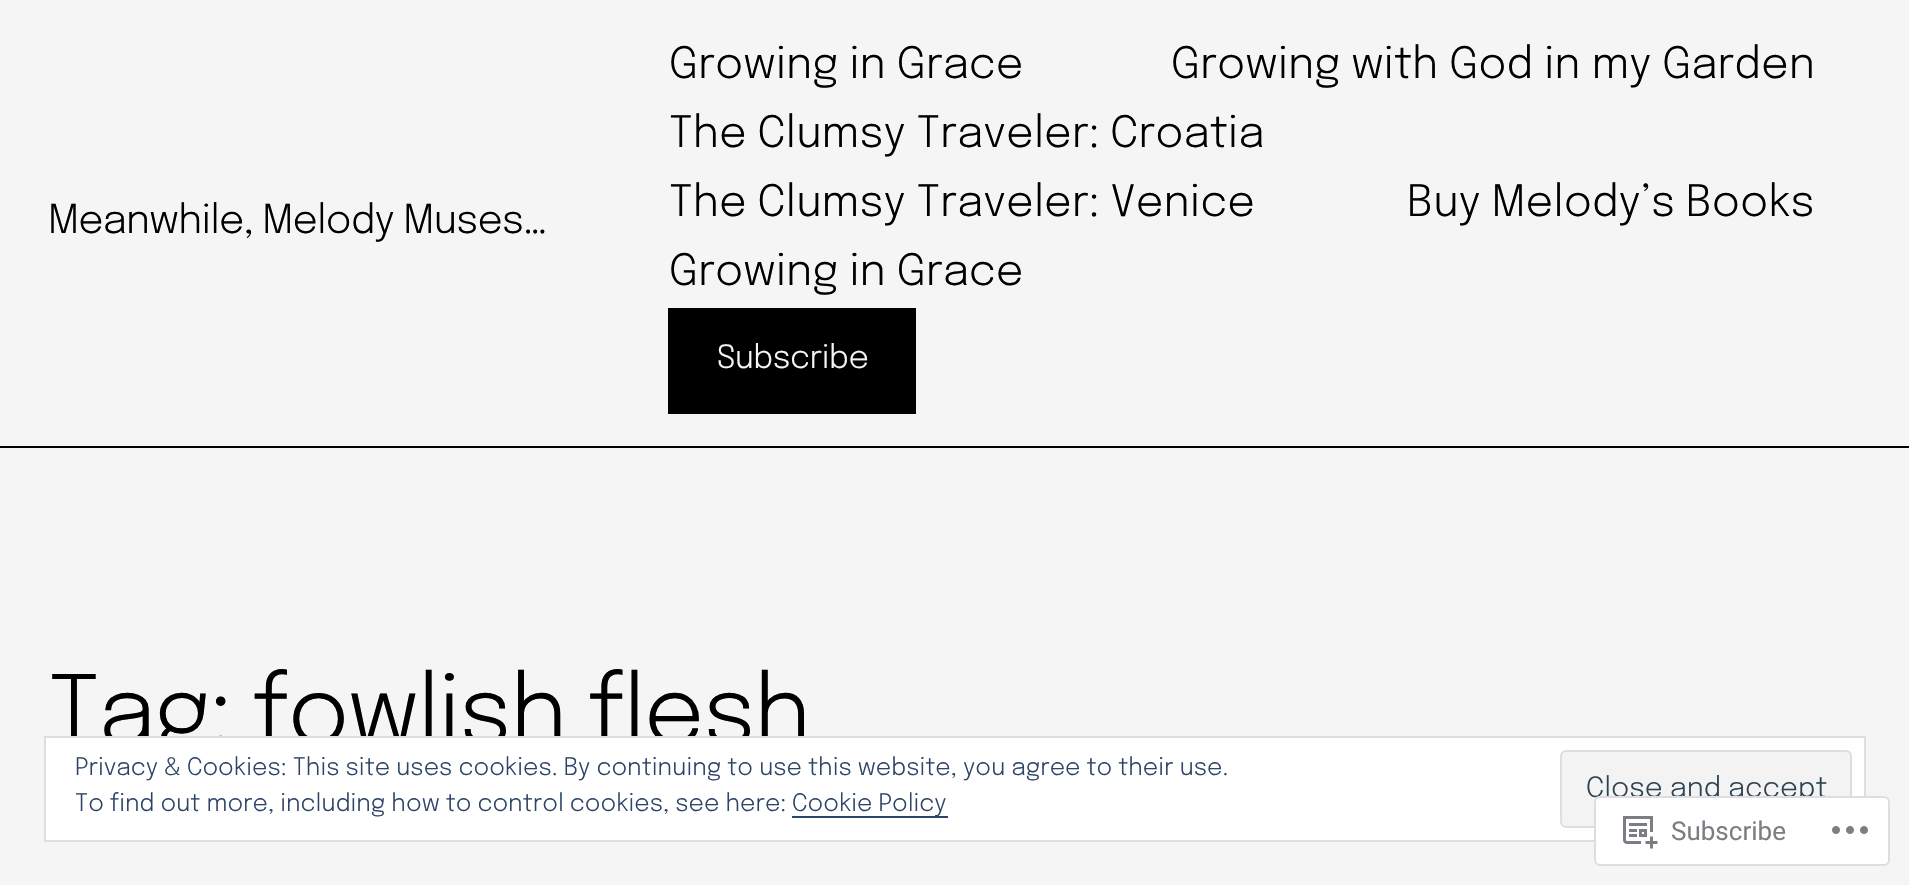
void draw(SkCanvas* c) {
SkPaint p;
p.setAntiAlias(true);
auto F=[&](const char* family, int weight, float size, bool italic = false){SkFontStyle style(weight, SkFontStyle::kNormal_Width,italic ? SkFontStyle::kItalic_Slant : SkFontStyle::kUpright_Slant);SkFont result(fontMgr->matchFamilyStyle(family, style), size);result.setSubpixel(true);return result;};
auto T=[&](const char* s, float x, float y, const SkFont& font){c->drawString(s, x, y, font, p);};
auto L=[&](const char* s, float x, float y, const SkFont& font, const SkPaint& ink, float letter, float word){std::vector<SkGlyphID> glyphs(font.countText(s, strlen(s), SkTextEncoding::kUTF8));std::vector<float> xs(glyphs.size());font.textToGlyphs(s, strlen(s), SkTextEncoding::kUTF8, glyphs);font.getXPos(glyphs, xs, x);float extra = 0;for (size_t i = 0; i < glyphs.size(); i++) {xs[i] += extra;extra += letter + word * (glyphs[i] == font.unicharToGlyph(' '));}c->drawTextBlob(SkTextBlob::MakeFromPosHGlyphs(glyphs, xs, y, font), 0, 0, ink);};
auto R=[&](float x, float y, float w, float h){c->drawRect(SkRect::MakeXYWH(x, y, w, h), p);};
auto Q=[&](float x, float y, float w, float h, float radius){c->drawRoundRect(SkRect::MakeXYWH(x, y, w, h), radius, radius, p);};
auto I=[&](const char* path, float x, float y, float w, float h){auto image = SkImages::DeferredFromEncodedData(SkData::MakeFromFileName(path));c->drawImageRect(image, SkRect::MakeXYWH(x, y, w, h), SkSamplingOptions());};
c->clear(0xfff5f5f5);
p.setColor(0xff000000);
R(0,446,1909,2);
auto f1 = F("Epilogue",300,39.5);
L("Meanwhile, Melody Muses…",48,233,f1,p,-.75,0);
auto f2 = F("Epilogue",300,43.2);
T("Growing in Grace",669,78,f2);
T("Growing with God in my Garden",1171,78,f2);
T("The Clumsy Traveler: Croatia",669,147,f2);
T("The Clumsy Traveler: Venice",669,216,f2);
T("Buy Melody’s Books",1407,216,f2);
T("Growing in Grace",669,285,f2);
R(668,308,248,106);
auto f3 = F("Epilogue",300,32);
p.setColor(0xfff5f5f5);
L("Subscribe",717,368,f3,p,-.5,0);
auto f4 = F("Epilogue",300,95);
p.setColor(0xff000000);
L("Tag: fowlish flesh",48,744,f4,p,-1.9,0);
p.setColor(0xffffffff);
c->drawRect(SkRect::MakeXYWH(45,737,1820,104),p);
p.setStroke(true);
p.setStrokeWidth(2);
p.setColor(0xffdedede);
c->drawRect(SkRect::MakeXYWH(45,737,1820,104),p);
auto f5 = F("Epilogue",300,24);
p.setStroke(false);
p.setColor(0xff2e4467);
T("Privacy & Cookies: This site uses cookies. By continuing to use this website, you agree to their use.",75,775,f5);
T("To find out more, including how to control cookies, see here:",75,811,f5);
R(792,816,156,2);
T("Cookie Policy",792,811,f5);
p.setColor(0xfff3f3f3);
c->drawRoundRect(SkRect::MakeXYWH(1561,751,290,76),5,5,p);
p.setStroke(true);
p.setColor(0xffdedede);
c->drawRoundRect(SkRect::MakeXYWH(1561,751,290,76),5,5,p);
auto f6 = F("Epilogue",300,28);
p.setStroke(false);
p.setColor(0xff2e4453);
T("Close and accept",1586,797,f6);
p.setColor(0xfaffffff);
Q(1594,796,296,70,6);
p.setStroke(true);
p.setColor(0xfadcdcde);
c->drawRoundRect(SkRect::MakeXYWH(1595,797,294,68),5,5,p);
I("1.png",1623,816,35,33);
auto f7 = F("Roboto",400,26);
p.setStroke(false);
p.setColor(0xff7b7f84);
T("Subscribe",1671,840,f7);
I("2.png",1832,826,36,8);
}
